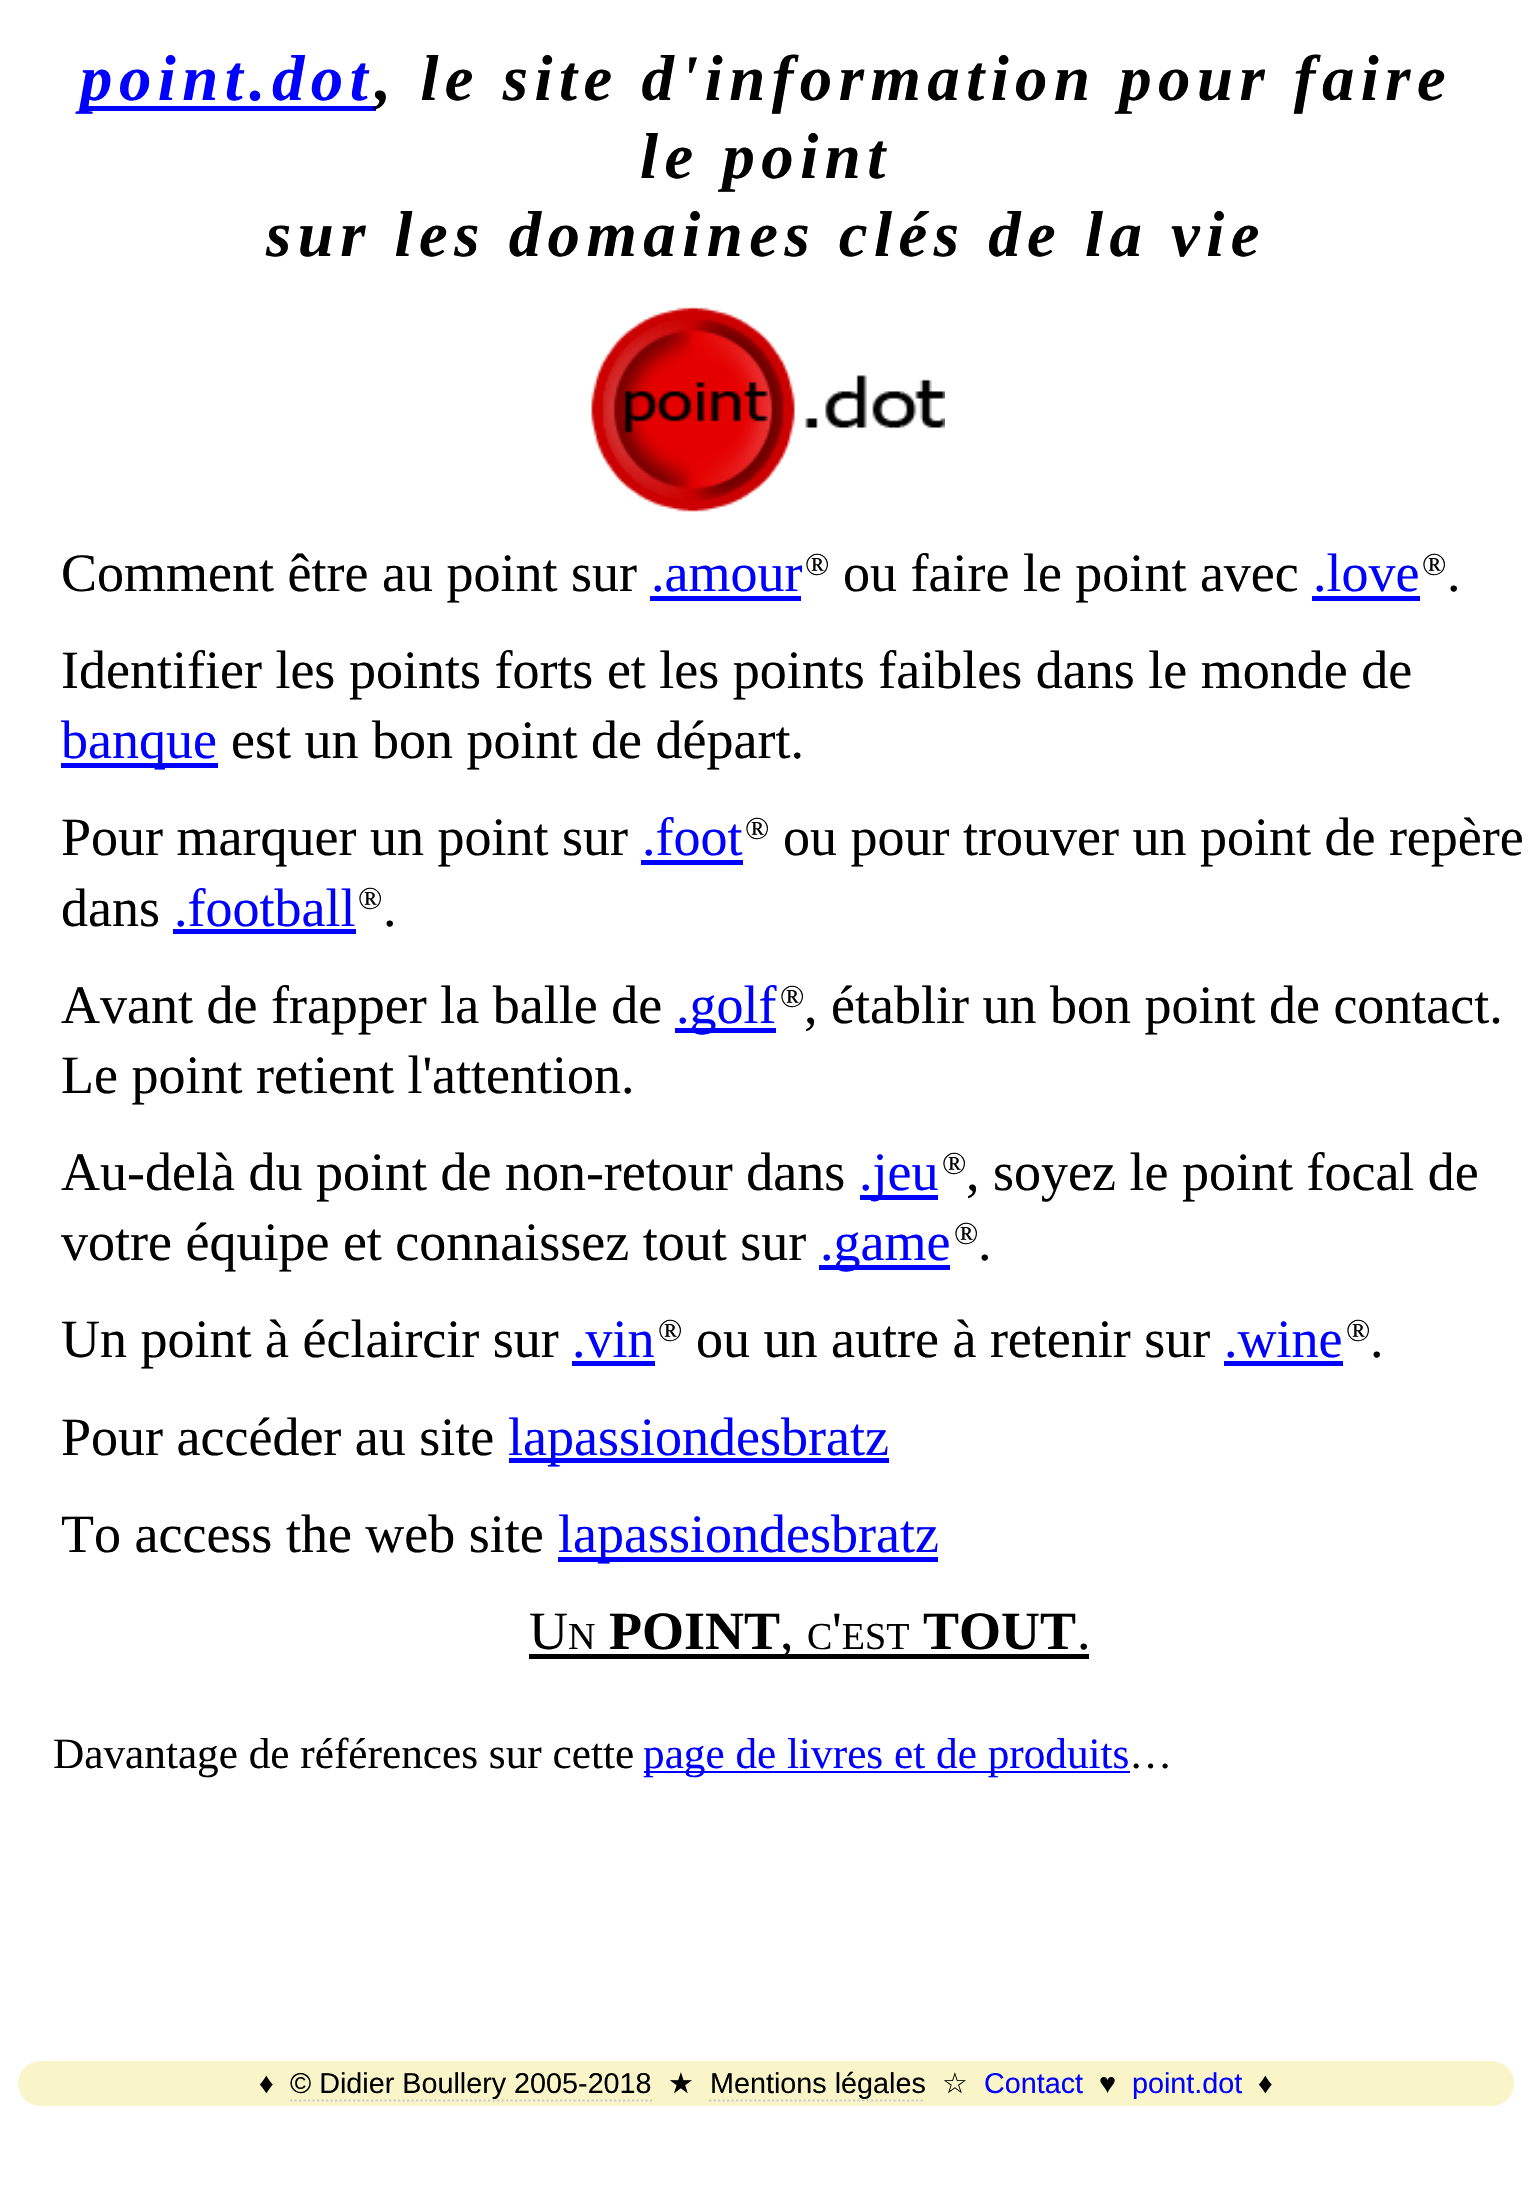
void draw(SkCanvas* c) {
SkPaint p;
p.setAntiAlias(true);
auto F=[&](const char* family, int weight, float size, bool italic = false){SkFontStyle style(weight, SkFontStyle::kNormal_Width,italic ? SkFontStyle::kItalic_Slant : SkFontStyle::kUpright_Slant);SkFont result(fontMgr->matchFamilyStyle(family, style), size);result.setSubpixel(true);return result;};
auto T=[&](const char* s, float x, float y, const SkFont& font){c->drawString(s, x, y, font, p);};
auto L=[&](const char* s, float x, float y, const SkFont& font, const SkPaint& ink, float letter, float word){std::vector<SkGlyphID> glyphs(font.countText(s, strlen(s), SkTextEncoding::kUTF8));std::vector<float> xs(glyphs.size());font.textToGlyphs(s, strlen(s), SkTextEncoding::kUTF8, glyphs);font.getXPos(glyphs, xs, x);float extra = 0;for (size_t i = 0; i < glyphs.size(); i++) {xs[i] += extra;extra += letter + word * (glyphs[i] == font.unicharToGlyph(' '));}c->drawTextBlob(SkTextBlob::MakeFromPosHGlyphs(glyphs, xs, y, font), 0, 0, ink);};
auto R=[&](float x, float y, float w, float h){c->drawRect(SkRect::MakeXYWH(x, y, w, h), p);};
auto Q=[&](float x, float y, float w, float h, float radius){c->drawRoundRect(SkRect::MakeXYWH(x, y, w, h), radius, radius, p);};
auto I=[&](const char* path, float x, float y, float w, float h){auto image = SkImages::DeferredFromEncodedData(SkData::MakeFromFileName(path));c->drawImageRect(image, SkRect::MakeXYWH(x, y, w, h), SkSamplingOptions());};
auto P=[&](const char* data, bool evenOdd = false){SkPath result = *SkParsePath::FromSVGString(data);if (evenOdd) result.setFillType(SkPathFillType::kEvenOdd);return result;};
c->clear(0xffffffff);
p.setColor(0xff0000ff);
R(81,106,295,5);
auto f1 = F("Liberation Serif",700,64.75,true);
L("point.dot",80,100,f1,p,6.5,0);
p.setColor(0xff000001);
L(", le site d'information pour faire",375,100,f1,p,6.5,0);
L("le point",640,178,f1,p,6.5,0);
L("sur les domaines clés de la vie",266,256,f1,p,6.5,0);
I("1.png",591,307,354,205);
auto f2 = F("Liberation Serif",400,54);
T("Comment être au point sur",61,591,f2);
p.setColor(0xff0000ff);
T(".amour",651,591,f2);
R(650,596,151,5);
auto f3 = F("Liberation Serif",400,32);
p.setColor(0xff000001);
T("®",805,575,f3);
T("ou faire le point avec",843,591,f2);
p.setColor(0xff0000ff);
T(".love",1313,591,f2);
R(1312,596,108,5);
p.setColor(0xff000001);
T("®",1422,575,f3);
T(".",1447,591,f2);
T("Identifier les points forts et les points faibles dans le monde de",61,688,f2);
p.setColor(0xff0000ff);
R(61,763,157,5);
T("banque",61,758,f2);
p.setColor(0xff000001);
T("est un bon point de départ.",231,758,f2);
T("Pour marquer un point sur",61,855,f2);
p.setColor(0xff0000ff);
T(".foot",642,855,f2);
R(641,860,102,5);
p.setColor(0xff000001);
T("®",745,839,f3);
T("ou pour trouver un point de repère",783,855,f2);
T("dans",61,926,f2);
p.setColor(0xff0000ff);
T(".football",174,926,f2);
R(173,929,183,5);
p.setColor(0xff000001);
T("®",358,909,f3);
T(".",383,926,f2);
T("Avant de frapper la balle de",61,1023,f2);
p.setColor(0xff0000ff);
R(675,1028,101,5);
T(".golf",676,1023,f2);
p.setColor(0xff000001);
T("®",780,1007,f3);
T(", établir un bon point de contact.",804,1023,f2);
T("Le point retient l'attention.",61,1093,f2);
T("Au-delà du point de non-retour dans",61,1190,f2);
p.setColor(0xff0000ff);
R(860,1195,78,5);
T(".jeu",859,1190,f2);
p.setColor(0xff000001);
T("®",942,1174,f3);
T(", soyez le point focal de",966,1190,f2);
T("votre équipe et connaissez tout sur",61,1260,f2);
p.setColor(0xff0000ff);
R(819,1265,131,5);
T(".game",820,1260,f2);
p.setColor(0xff000001);
T("®",954,1244,f3);
T(".",978,1260,f2);
T("Un point à éclaircir sur",61,1357,f2);
p.setColor(0xff0000ff);
T(".vin",572,1357,f2);
R(572,1361,83,5);
p.setColor(0xff000001);
T("®",658,1341,f3);
T("ou un autre à retenir sur",696,1357,f2);
p.setColor(0xff0000ff);
T(".wine",1224,1357,f2);
R(1224,1361,119,5);
p.setColor(0xff000001);
T("®",1346,1341,f3);
T(".",1370,1357,f2);
T("Pour accéder au site",61,1455,f2);
p.setColor(0xff0000ff);
R(509,1458,380,5);
T("lapassiondesbratz",508,1455,f2);
p.setColor(0xff000001);
T("To access the web site",61,1552,f2);
p.setColor(0xff0000ff);
R(558,1557,380,5);
T("lapassiondesbratz",558,1552,f2);
p.setColor(0xff000001);
T("U",529,1649,f2);
auto f4 = F("Liberation Serif",400,38);
T("N",568,1649,f4);
R(529,1654,560,5);
auto f5 = F("Liberation Serif",700,54);
T("POINT",609,1649,f5);
T("'",832,1649,f2);
T("TOUT",923,1649,f5);
T(",",780,1649,f2);
T("C EST",807,1649,f4);
T(".",1077,1649,f2);
auto f6 = F("Liberation Serif",400,43.25);
T("Davantage de références sur cette",53,1768,f6);
p.setColor(0xff0000ff);
R(644,1771,486,2);
T("page de livres et de produits",643,1768,f6);
p.setColor(0xff000001);
T("…",1129,1768,f6);
p.setColor(0xfffaf5c8);
Q(18,2061,1496,45,22.5);
auto f7 = F("Liberation Sans",400,28.75);
p.setColor(0xff000001);
T("♦",259,2093,f7);
T("© Didier Boullery 2005-2018",290,2093,f7);
p.setStroke(true);
p.setStrokeWidth(2.2);
p.setColor(0xffcccccc);
p.setPathEffect(SkDashPathEffect::Make({{2.25f,2.25f}}, 0));
c->drawPath(P("M290 2100.5h362.5"),p);
p.setPathEffect(nullptr);
auto f8 = F("DejaVu Sans",400,28.75);
p.setStroke(false);
p.setColor(0xff000001);
T("★",668,2093,f8);
T("Mentions légales",710,2093,f7);
p.setStroke(true);
p.setColor(0xffcccccc);
p.setPathEffect(SkDashPathEffect::Make({{2.25f,2.25f}}, 0));
c->drawPath(P("M709 2100.5h216"),p);
p.setPathEffect(nullptr);
p.setStroke(false);
p.setColor(0xff000001);
T("☆",942,2093,f8);
p.setColor(0xff0000ff);
T("Contact",984,2093,f7);
p.setColor(0xff000001);
T("♥",1099,2093,f7);
p.setColor(0xff0000ff);
T("point.dot",1132,2093,f7);
p.setColor(0xff000001);
T("♦",1258,2093,f7);
}
